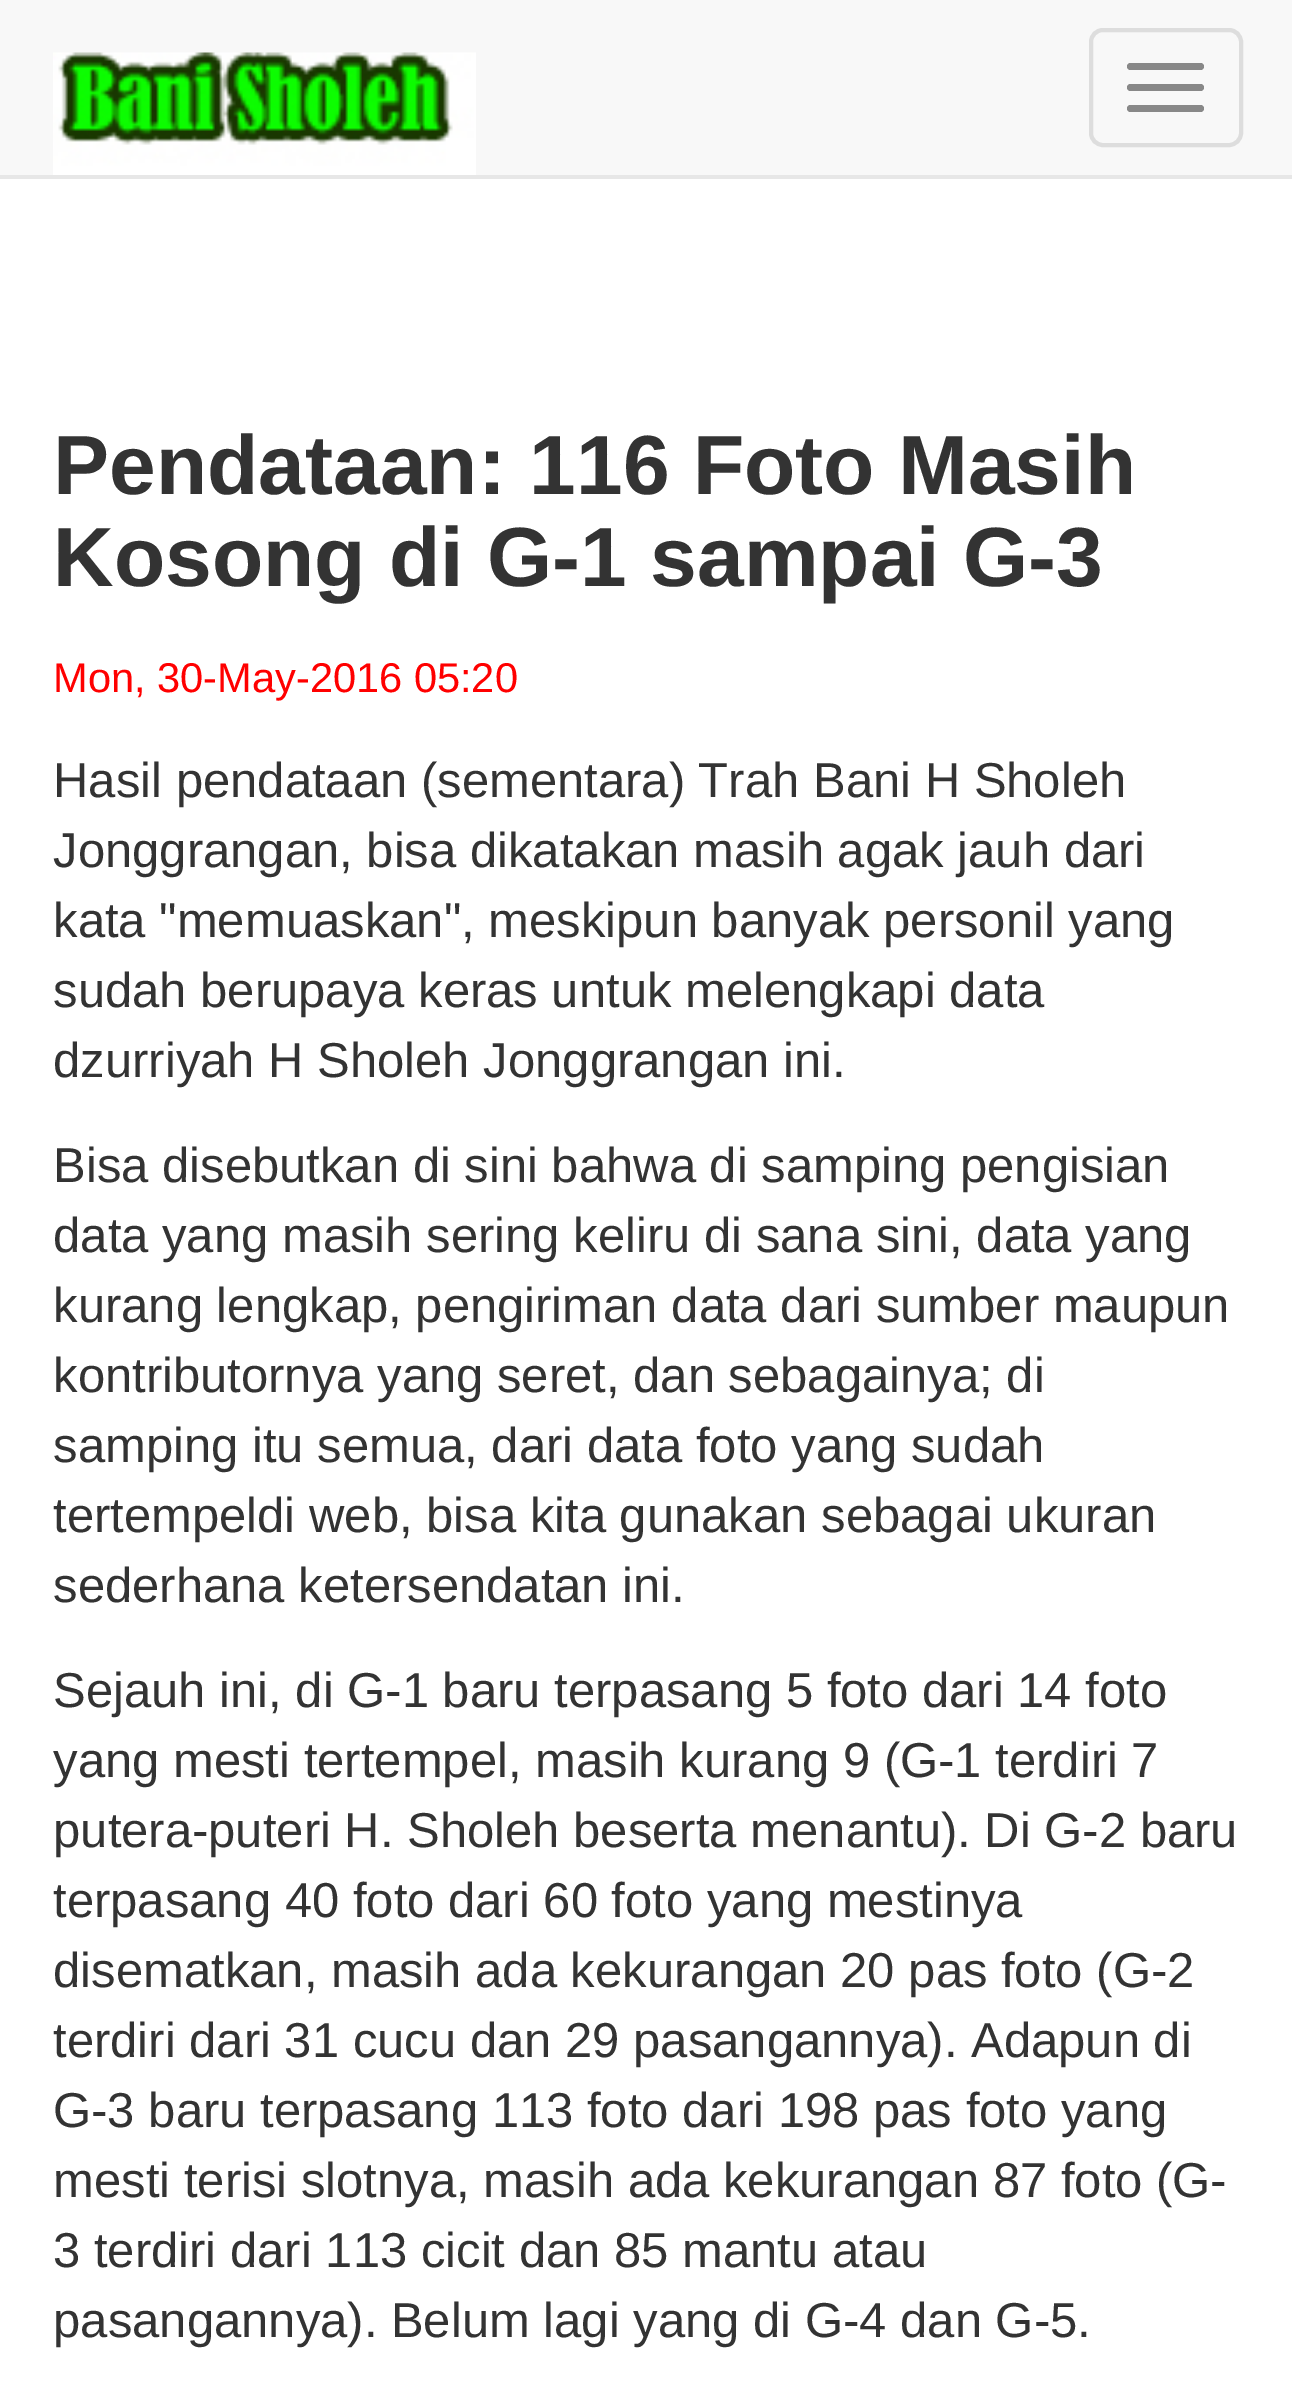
%!PS-Adobe-3.0
%%BoundingBox: 0 0 1292 2398
%%LanguageLevel: 3
%%Pages: 1
%%EndComments
%%BeginProlog
/setink { dup -16 bitshift 255 div exch dup -8 bitshift 255 and 255 div exch 255 and 255 div setrgbcolor } def
/usefont { [ exch dup neg 0 0 3 -1 roll 0 0 ] selectfont } def
/rrect { 5 dict begin { /r /h /w /y /x } { exch def } forall
  x r add y moveto x w add y 2 copy h add r arct x w add y h add x 1 index r arct
  x y h add x y r arct x y 2 copy exch w add exch r arct closepath end } def
/drawimage { 5 dict begin { /h /w /y /x /name } { exch def } forall
  gsave x y translate w h scale
  w h 8 [w 0 0 h 0 0] name (r) file false 3 colorimage grestore end } def
%%EndProlog
%%BeginSetup
<< /PageSize [1292 2398] >> setpagedevice
%%EndSetup
%%Page: 1 1
0 2398 translate 1 -1 scale
4 setmiterlimit
16#FFFFFF setink
0 0 1292 2398 rectfill
16#F8F8F8 setink
0 0 1292 175 rectfill
16#E7E7E7 setink
0 175 1292 4 rectfill
(img1.raw) 53 52 423 123 drawimage
16#DDDDDD setink
4 setlinewidth
1091 30 150 115 12 rrect stroke
16#888888 setink
1127 63 77 7 3.5 rrect fill
1127 84 77 7 3.5 rrect fill
1127 105 77 7 3.5 rrect fill
/LiberationSans-Bold 84 usefont
16#333333 setink
53 494 moveto (Pendataan: 116 Foto Masih) show
53 586 moveto (Kosong di G-1 sampai G-3) show
/LiberationSans-Regular 41.6 usefont
16#FF0000 setink
53 692 moveto (Mon, 30-May-2016 05:20) show
/LiberationSans-Regular 49 usefont
16#333333 setink
[
    [(Hasil pendataan \(sementara\) Trah Bani H Sholeh) 53 797]
    [(Jonggrangan, bisa dikatakan masih agak jauh dari) 53 867]
    [(kata "memuaskan", meskipun banyak personil yang) 53 937]
    [(sudah berupaya keras untuk melengkapi data) 53 1007]
    [(dzurriyah H Sholeh Jonggrangan ini.) 53 1077]
    [(Bisa disebutkan di sini bahwa di samping pengisian) 53 1182]
    [(data yang masih sering keliru di sana sini, data yang) 53 1252]
    [(kurang lengkap, pengiriman data dari sumber maupun) 53 1322]
    [(kontributornya yang seret, dan sebagainya; di) 53 1392]
    [(samping itu semua, dari data foto yang sudah) 53 1462]
    [(tertempeldi web, bisa kita gunakan sebagai ukuran) 53 1532]
    [(sederhana ketersendatan ini.) 53 1602]
    [(Sejauh ini, di G-1 baru terpasang 5 foto dari 14 foto) 53 1707]
    [(yang mesti tertempel, masih kurang 9 \(G-1 terdiri 7) 53 1777]
    [(putera-puteri H. Sholeh beserta menantu\). Di G-2 baru) 53 1847]
    [(terpasang 40 foto dari 60 foto yang mestinya) 53 1917]
    [(disematkan, masih ada kekurangan 20 pas foto \(G-2) 53 1987]
    [(terdiri dari 31 cucu dan 29 pasangannya\). Adapun di) 53 2057]
    [(G-3 baru terpasang 113 foto dari 198 pas foto yang) 53 2127]
    [(mesti terisi slotnya, masih ada kekurangan 87 foto \(G-) 53 2197]
    [(3 terdiri dari 113 cicit dan 85 mantu atau) 53 2267]
    [(pasangannya\). Belum lagi yang di G-4 dan G-5.) 53 2337]
] { aload pop moveto show } forall
showpage
%%EOF
